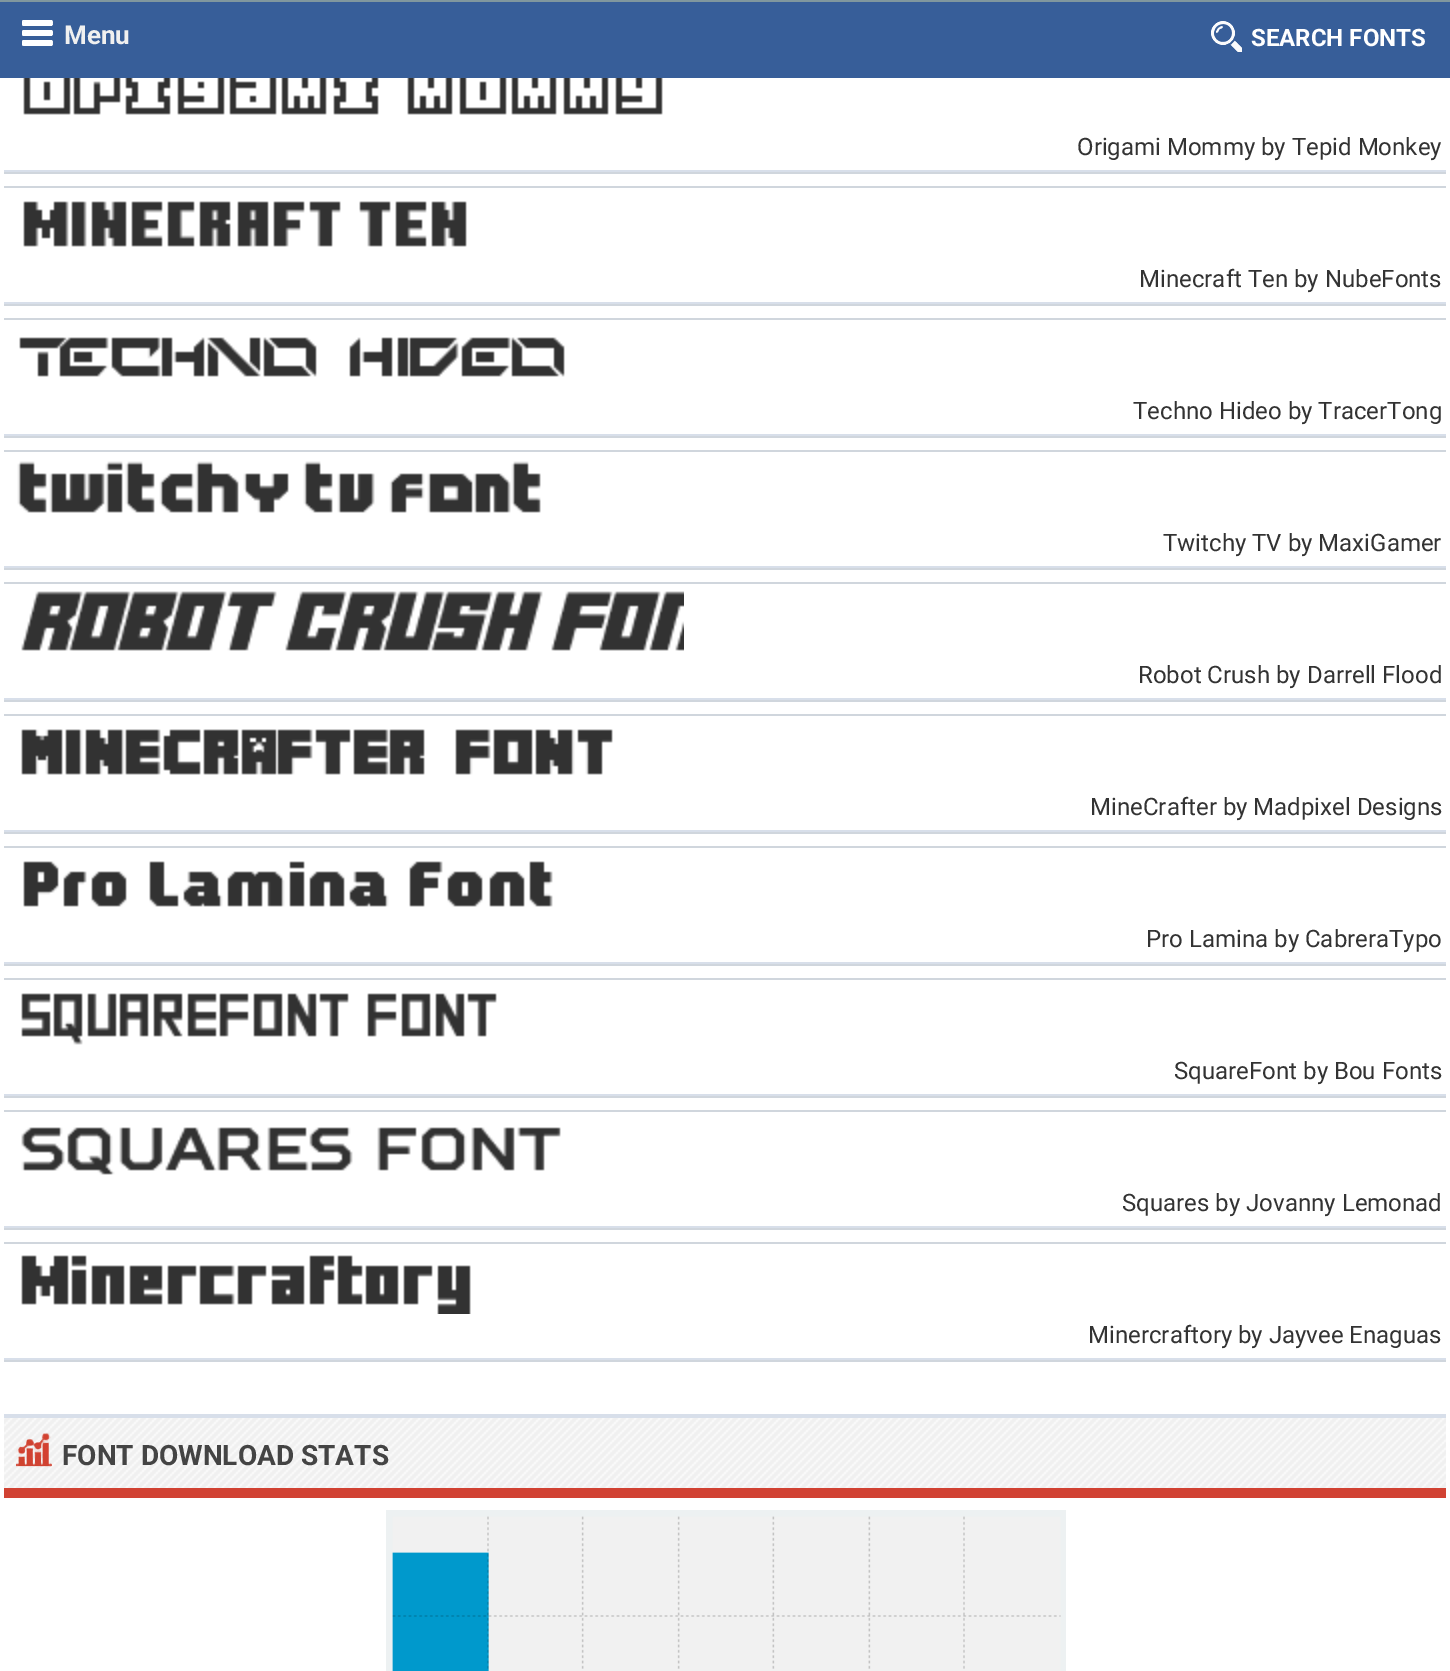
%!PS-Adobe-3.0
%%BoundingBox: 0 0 1450 1671
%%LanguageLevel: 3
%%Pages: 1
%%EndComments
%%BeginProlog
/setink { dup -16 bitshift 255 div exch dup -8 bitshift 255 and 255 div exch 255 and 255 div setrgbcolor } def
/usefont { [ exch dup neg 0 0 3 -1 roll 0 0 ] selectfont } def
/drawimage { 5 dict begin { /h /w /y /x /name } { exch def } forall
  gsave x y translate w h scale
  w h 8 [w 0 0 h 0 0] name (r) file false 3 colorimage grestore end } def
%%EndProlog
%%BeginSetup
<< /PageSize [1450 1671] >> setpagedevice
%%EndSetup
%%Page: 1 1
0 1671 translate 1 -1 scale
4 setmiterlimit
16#FFFFFF setink
0 0 1450 1671 rectfill
16#375E99 setink
0 2 1450 76 rectfill
16#80979E setink
0 0 1450 2 rectfill
(img1.raw) 22 20 31 26 drawimage
/Roboto-Bold 26 usefont
16#F0F0F0 setink
64 44 moveto (Menu) show
(img2.raw) 1211 21 31 31 drawimage
/Roboto-Bold 24 usefont
16#FFFFFF setink
1251 46 moveto (SEARCH FONTS) show
16#D0D6DD setink
4 172 1442 2 rectfill
(img3.raw) 23 78 640 37 drawimage
16#D8DFEA setink
4 170 1442 2 rectfill
/Roboto-Regular 24 usefont
16#333333 setink
1077 155 moveto (Origami Mommy by Tepid Monkey) show
16#D0D6DD setink
4 186 1442 2 rectfill
4 304 1442 2 rectfill
(img4.raw) 23 201 444 46 drawimage
16#D8DFEA setink
4 302 1442 2 rectfill
16#333333 setink
1139 287 moveto (Minecraft Ten by NubeFonts) show
16#D0D6DD setink
4 318 1442 2 rectfill
4 436 1442 2 rectfill
(img5.raw) 19 337 546 40 drawimage
16#D8DFEA setink
4 434 1442 2 rectfill
16#333333 setink
1133 419 moveto (Techno Hideo by TracerTong) show
16#D0D6DD setink
4 450 1442 2 rectfill
4 568 1442 2 rectfill
(img6.raw) 17 461 524 52 drawimage
16#D8DFEA setink
4 566 1442 2 rectfill
16#333333 setink
1163 551 moveto (Twitchy TV by MaxiGamer) show
16#D0D6DD setink
4 582 1442 2 rectfill
4 700 1442 2 rectfill
(img7.raw) 21 591 663 60 drawimage
16#D8DFEA setink
4 698 1442 2 rectfill
16#333333 setink
1138 683 moveto (Robot Crush by Darrell Flood) show
16#D0D6DD setink
4 714 1442 2 rectfill
4 832 1442 2 rectfill
(img8.raw) 21 729 592 46 drawimage
16#D8DFEA setink
4 830 1442 2 rectfill
16#333333 setink
1090 815 moveto (MineCrafter by Madpixel Designs) show
16#D0D6DD setink
4 846 1442 2 rectfill
4 964 1442 2 rectfill
(img9.raw) 23 861 530 46 drawimage
16#D8DFEA setink
4 962 1442 2 rectfill
16#333333 setink
1146 947 moveto (Pro Lamina by CabreraTypo) show
16#D0D6DD setink
4 978 1442 2 rectfill
4 1096 1442 2 rectfill
(img10.raw) 21 993 476 52 drawimage
16#D8DFEA setink
4 1094 1442 2 rectfill
16#333333 setink
1174 1079 moveto (SquareFont by Bou Fonts) show
16#D0D6DD setink
4 1110 1442 2 rectfill
4 1228 1442 2 rectfill
(img11.raw) 21 1127 540 48 drawimage
16#D8DFEA setink
4 1226 1442 2 rectfill
16#333333 setink
1122 1211 moveto (Squares by Jovanny Lemonad) show
16#D0D6DD setink
4 1242 1442 2 rectfill
4 1360 1442 2 rectfill
(img12.raw) 21 1255 450 59 drawimage
16#D8DFEA setink
4 1358 1442 2 rectfill
16#333333 setink
1088 1343 moveto (Minercraftory by Jayvee Enaguas) show
(img13.raw) 4 1418 1442 70 drawimage
16#D8DFEA setink
4 1414 1442 4 rectfill
16#D14233 setink
4 1488 1442 10 rectfill
(img14.raw) 16 1432 36 36 drawimage
/Roboto-Bold 28 usefont
16#444444 setink
62 1465 moveto (FONT DOWNLOAD STATS) show
(img15.raw) 386 1510 680 161 drawimage
showpage
%%EOF
